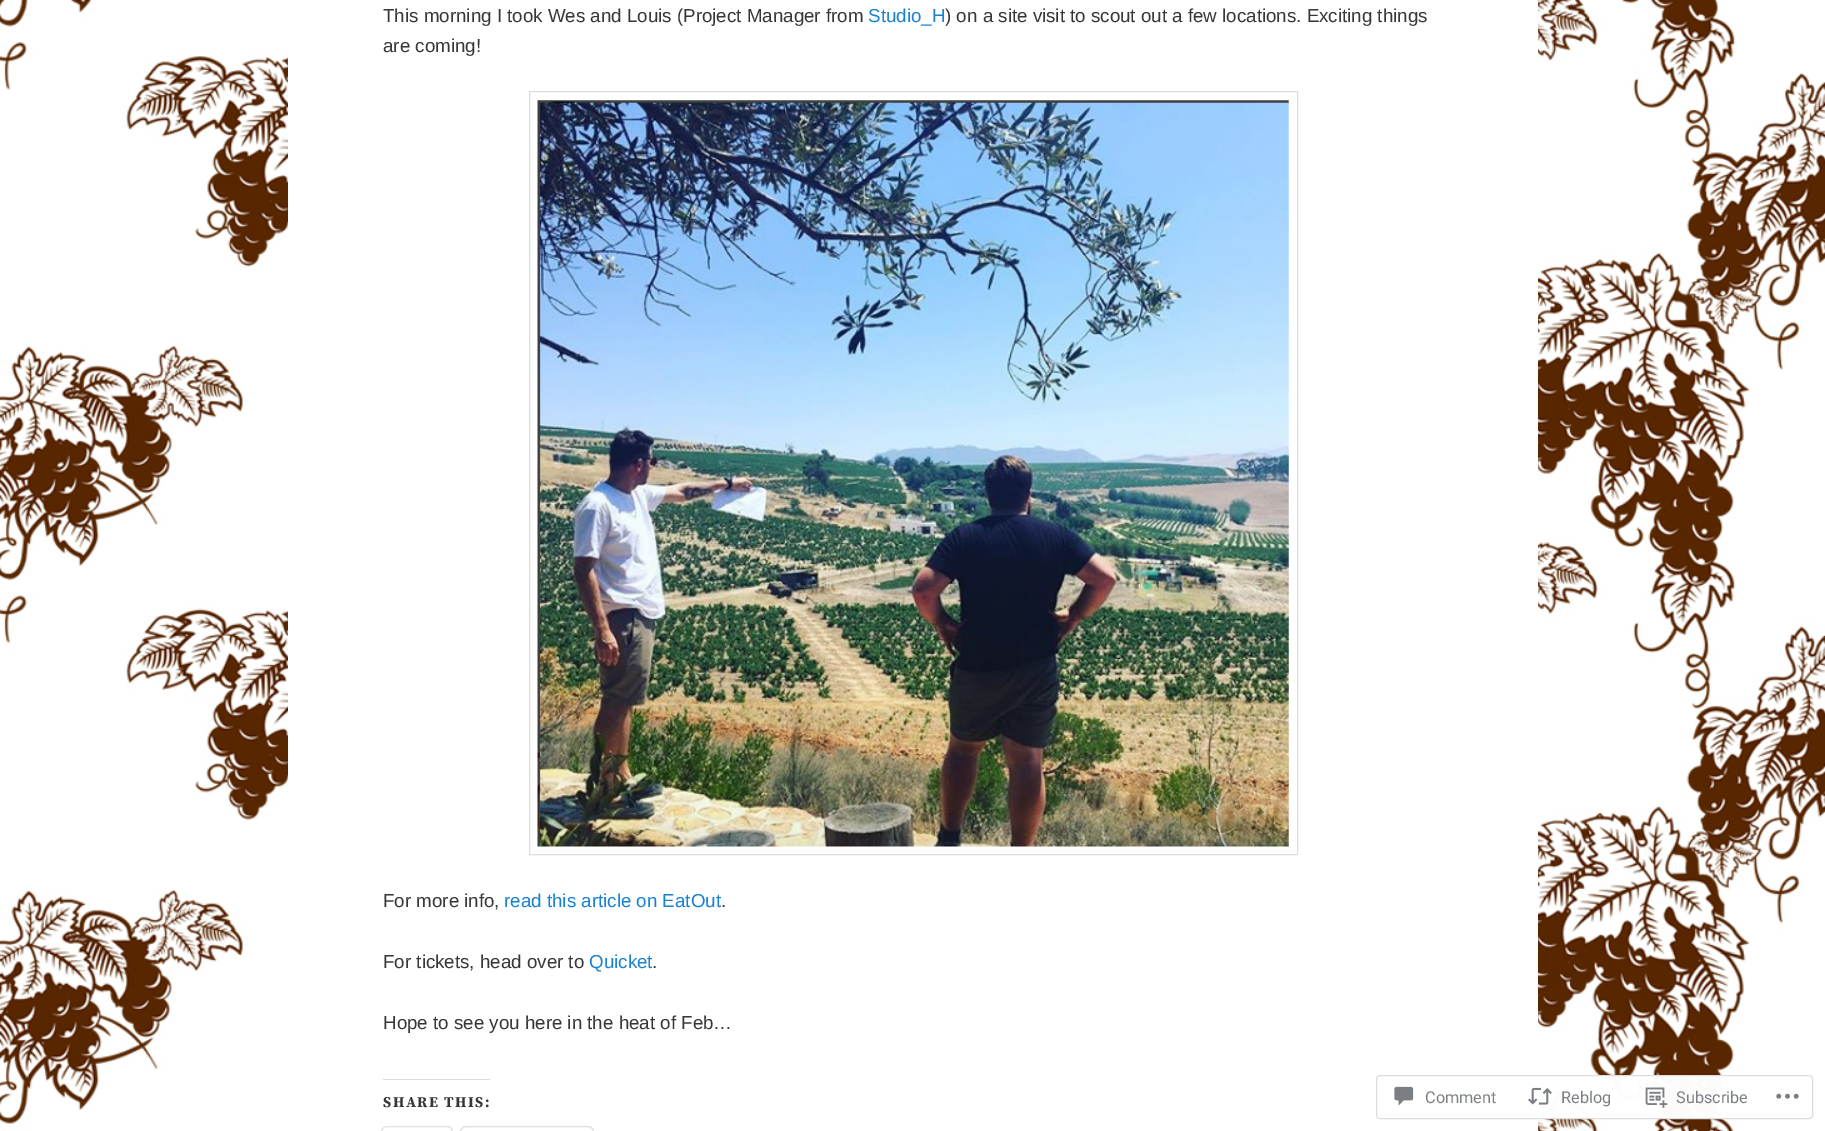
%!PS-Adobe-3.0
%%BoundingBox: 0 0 1825 1131
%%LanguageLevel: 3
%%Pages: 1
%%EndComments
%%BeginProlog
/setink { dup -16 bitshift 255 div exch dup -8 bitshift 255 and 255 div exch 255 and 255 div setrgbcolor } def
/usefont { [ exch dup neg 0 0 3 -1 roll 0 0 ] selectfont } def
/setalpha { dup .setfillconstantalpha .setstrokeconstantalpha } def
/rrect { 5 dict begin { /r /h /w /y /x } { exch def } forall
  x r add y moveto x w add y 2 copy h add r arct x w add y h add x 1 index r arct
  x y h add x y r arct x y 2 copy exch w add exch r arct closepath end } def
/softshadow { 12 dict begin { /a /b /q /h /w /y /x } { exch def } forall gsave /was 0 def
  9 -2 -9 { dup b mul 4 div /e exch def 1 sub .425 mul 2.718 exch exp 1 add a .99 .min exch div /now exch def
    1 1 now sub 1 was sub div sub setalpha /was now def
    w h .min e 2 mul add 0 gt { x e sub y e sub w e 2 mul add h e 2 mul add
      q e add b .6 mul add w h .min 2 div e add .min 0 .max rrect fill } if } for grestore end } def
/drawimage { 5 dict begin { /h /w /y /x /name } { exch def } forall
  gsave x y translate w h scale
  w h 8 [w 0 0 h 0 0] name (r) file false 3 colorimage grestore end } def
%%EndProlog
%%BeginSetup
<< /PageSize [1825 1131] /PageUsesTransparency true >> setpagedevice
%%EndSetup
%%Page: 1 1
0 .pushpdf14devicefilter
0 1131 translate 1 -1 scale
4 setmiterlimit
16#FFFFFF setink
0 0 1825 1131 rectfill
(img1.raw) 0 0 1825 1131 drawimage
288 0 1250 1131 rectfill
/LiberationSans-Regular 18.75 usefont
16#373737 setink
383 22 moveto (This morning I took Wes and Louis \(Project Manager from) show
16#1982D1 setink
868 22 moveto (Studio_H) show
16#373737 setink
945 22 moveto (\) on a site visit to scout out a few locations. Exciting things) show
383 52 moveto (are coming!) show
16#DDDDDD setink
529.5 91.5 768 763 rectstroke
(img2.raw) 537 100 752 747 drawimage
16#373737 setink
383 907 moveto (For more info,) show
16#1982D1 setink
504 907 moveto (read this article on EatOut) show
16#373737 setink
721 907 moveto (.) show
383 968 moveto (For tickets, head over to) show
16#1982D1 setink
589 968 moveto (Quicket) show
16#373737 setink
652 968 moveto (.) show
383 1029 moveto (Hope to see you here in the heat of Feb…) show
16#DCDCDE setink
383 1079 107 1 rectfill
/SourceSerifPro-Bold 15 usefont
16#373737 setink
383 1107 moveto 1.5 0 (SHARE THIS:) ashow
16#E0E0E0 setink
381.5 1126.5 71 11 5.5 rrect stroke
460.5 1126.5 133 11 5.5 rrect stroke
16#000000 setink
461 1129 132 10 5 1 0.12 softshadow
16#FFFFFF setink
461 1128 132 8 5 rrect fill
0.98 setalpha
1376 1075 437 44 4 rrect fill
16#DCDCDE setink
1376.5 1075.5 436 43 3.5 rrect stroke
1 setalpha
(img3.raw) 1394 1086 20 20 drawimage
/Roboto-Regular 16.25 usefont
16#7B7F85 setink
1425 1103 moveto (Comment) show
(img4.raw) 1528 1087 24 18 drawimage
1561 1103 moveto (Reblog) show
(img5.raw) 1645 1087 23 21 drawimage
1676 1103 moveto (Subscribe) show
(img6.raw) 1776 1093 23 6 drawimage
.poppdf14devicefilter showpage
%%EOF
